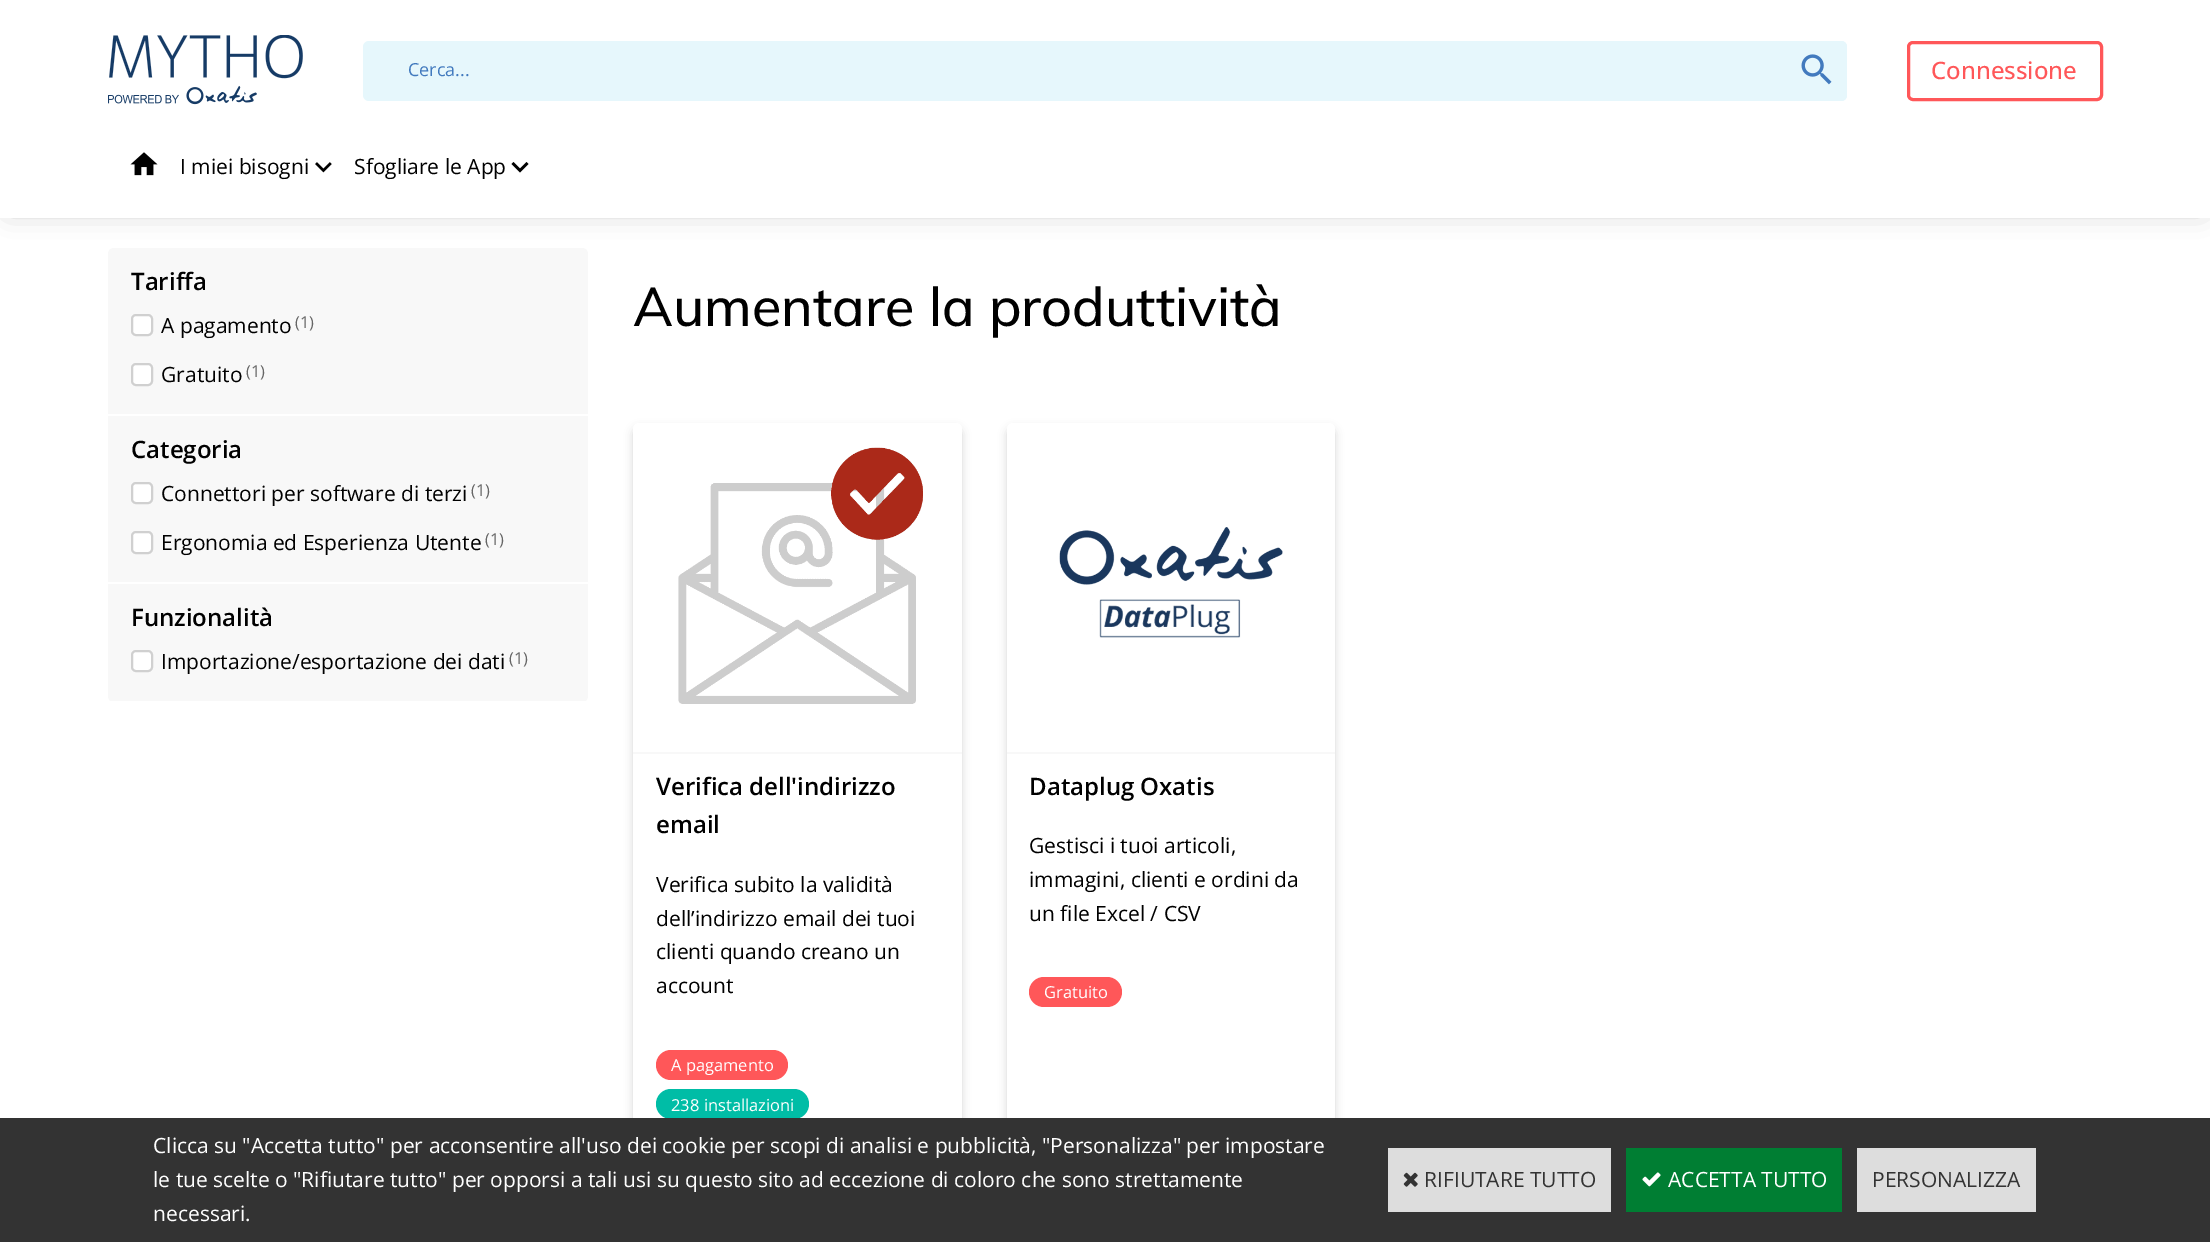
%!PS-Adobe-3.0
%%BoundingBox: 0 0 2210 1242
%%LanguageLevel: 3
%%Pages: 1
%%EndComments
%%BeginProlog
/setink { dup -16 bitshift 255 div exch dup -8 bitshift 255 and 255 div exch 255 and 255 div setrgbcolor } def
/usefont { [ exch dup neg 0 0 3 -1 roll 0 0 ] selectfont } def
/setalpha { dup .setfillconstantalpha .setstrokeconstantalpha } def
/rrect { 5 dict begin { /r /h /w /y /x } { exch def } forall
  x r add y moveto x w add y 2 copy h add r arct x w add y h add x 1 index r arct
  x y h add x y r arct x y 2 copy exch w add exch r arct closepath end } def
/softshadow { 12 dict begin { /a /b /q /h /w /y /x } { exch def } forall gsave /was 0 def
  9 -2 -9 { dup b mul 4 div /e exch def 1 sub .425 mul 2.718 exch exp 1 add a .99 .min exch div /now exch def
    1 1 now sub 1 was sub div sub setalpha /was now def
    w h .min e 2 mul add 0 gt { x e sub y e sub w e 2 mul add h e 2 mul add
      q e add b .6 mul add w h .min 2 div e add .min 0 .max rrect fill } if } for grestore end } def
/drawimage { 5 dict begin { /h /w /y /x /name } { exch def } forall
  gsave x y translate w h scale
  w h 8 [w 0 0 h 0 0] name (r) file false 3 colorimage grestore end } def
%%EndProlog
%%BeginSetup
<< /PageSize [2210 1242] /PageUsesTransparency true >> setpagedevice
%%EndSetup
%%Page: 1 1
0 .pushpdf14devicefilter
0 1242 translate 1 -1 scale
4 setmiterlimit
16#FFFFFF setink
0 0 2210 1242 rectfill
16#F8F8F8 setink
114 248 moveto 582 248 lineto 585.5 248 588 250.5 588 254 curveto 588 416 lineto 108 416 lineto 108 254 lineto 108 250.5 110.5 248 114 248 curveto closepath fill
gsave
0 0 moveto 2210 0 lineto 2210 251 lineto 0 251 lineto closepath 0 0 moveto 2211 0 lineto 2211 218 lineto 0 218 lineto closepath eoclip newpath
16#000000 setink
9 9 2193 200 0 13.5 0.3 softshadow
grestore
(img1.raw) 108 35 195 70 drawimage
16#E6F7FC setink
363 41 1484 60 6 rrect fill
/OpenSans-Regular 18 usefont
16#427ABE setink
408 76 moveto (Cerca...) show
16#E6F7FC setink
1787 41 moveto 1841 41 lineto 1844.5 41 1847 43.5 1847 47 curveto 1847 95 lineto 1847 98.5 1844.5 101 1841 101 curveto 1787 101 lineto closepath fill
(img2.raw) 1801 54 31 31 drawimage
16#FF5759 setink
3 setlinewidth
1908.5 42.5 193 57 4.5 rrect stroke
/OpenSans-Medium 24 usefont
1931 79 moveto (Connessione) show
(img3.raw) 130 152 28 24 drawimage
/OpenSans-Regular 21 usefont
16#000000 setink
180 174 moveto (I miei bisogni) show
(img4.raw) 315 162 17 11 drawimage
354 174 moveto (Sfogliare le App) show
526.5 162 moveto 520 168.5 lineto 513.5 162 lineto 511.5 164 lineto 520 172.5 lineto 528.5 164 lineto closepath fill
16#FFFFFF setink
108 414 480 2 rectfill
/OpenSans-SemiBold 24 usefont
16#000000 setink
131 290 moveto (Tariffa) show
16#FFFFFF setink
132 315 20 20 4 rrect gsave fill grestore
16#D0D0D0 setink
2 setlinewidth
stroke
/OpenSans-Regular 21 usefont
16#000000 setink
161 333 moveto (A pagamento) show
/OpenSans-Regular 16.5 usefont
16#666666 setink
295 328 moveto (\(1\)) show
16#FFFFFF setink
132 364 20 21 4 rrect gsave fill grestore
16#D0D0D0 setink
stroke
/OpenSans-Regular 21 usefont
16#000000 setink
161 382 moveto (Gratuito) show
/OpenSans-Regular 16.5 usefont
16#666666 setink
246 377 moveto (\(1\)) show
16#F8F8F8 setink
108 416 480 166 rectfill
/OpenSans-SemiBold 24 usefont
16#000000 setink
131 458 moveto (Categoria) show
16#FFFFFF setink
132 483 20 20 4 rrect gsave fill grestore
16#D0D0D0 setink
stroke
/OpenSans-Regular 21 usefont
16#000000 setink
161 501 moveto (Connettori per software di terzi) show
/OpenSans-Regular 16.5 usefont
16#666666 setink
471 496 moveto (\(1\)) show
16#FFFFFF setink
132 532 20 21 4 rrect gsave fill grestore
16#D0D0D0 setink
stroke
/OpenSans-Regular 21 usefont
16#000000 setink
161 550 moveto (Ergonomia ed Esperienza Utente) show
/OpenSans-Regular 16.5 usefont
16#666666 setink
485 545 moveto (\(1\)) show
16#F8F8F8 setink
108 584 moveto 588 584 lineto 588 696 lineto 588 699.5 585.5 702 582 702 curveto 114 702 lineto 110.5 702 108 699.5 108 696 curveto closepath fill
gsave
108 248 480 454 6 rrect clip newpath
16#FFFFFF setink
108 701 480 1 rectfill
grestore
/OpenSans-SemiBold 24 usefont
16#000000 setink
131 626 moveto (Funzionalità) show
16#FFFFFF setink
132 651 20 20 4 rrect gsave fill grestore
16#D0D0D0 setink
stroke
/OpenSans-Regular 21 usefont
16#000000 setink
161 669 moveto (Importazione/esportazione dei dati) show
/OpenSans-Regular 16.5 usefont
16#666666 setink
509 664 moveto (\(1\)) show
/Muli-Medium 54 usefont
16#000000 setink
633 326 moveto (Aumentare la produttività) show
633 428 329 720 6 4.5 0.16 softshadow
16#FFFFFF setink
633 423 329 720 6 rrect fill
16#F8F8F8 setink
633 752 329 2 rectfill
(img5.raw) 678 447 245 257 drawimage
/OpenSans-SemiBold 24 usefont
16#000000 setink
656 795 moveto (Verifica dell'indirizzo) show
656 833 moveto (email) show
/OpenSans-Regular 21 usefont
[
    [(Verifica subito la validità) 656 892]
    [(dell’indirizzo email dei tuoi) 656 926]
    [(clienti quando creano un) 656 959]
    [(account) 656 993]
] { aload pop moveto show } forall
16#FF5759 setink
656 1050 132 30 15 rrect fill
/OpenSans-Regular 16.5 usefont
16#FFFFFF setink
671 1071 moveto (A pagamento) show
16#00BDA6 setink
656 1089 153 30 15 rrect fill
16#FFFFFF setink
671 1111 moveto (238 installazioni) show
16#000000 setink
1007 428 328 720 6 4.5 0.16 softshadow
16#FFFFFF setink
1007 423 328 720 6 rrect fill
16#F8F8F8 setink
1007 752 328 2 rectfill
(img6.raw) 1059 527 224 111 drawimage
/OpenSans-SemiBold 24 usefont
16#000000 setink
1029 795 moveto (Dataplug Oxatis) show
/OpenSans-Regular 21 usefont
[
    [(Gestisci i tuoi articoli,) 1029 853]
    [(immagini, clienti e ordini da) 1029 887]
    [(un file Excel / CSV) 1029 921]
] { aload pop moveto show } forall
16#FF5759 setink
1029 977 93 30 15 rrect fill
/OpenSans-Regular 16.5 usefont
16#FFFFFF setink
1044 998 moveto (Gratuito) show
16#333333 setink
0 1118 2210 124 rectfill
/OpenSans-Regular 21 usefont
16#FFFFFF setink
[
    [(Clicca su "Accetta tutto" per acconsentire all'uso dei cookie per scopi di analisi e pubblicità, "Personalizza" per impostare) 153 1153]
    [(le tue scelte o "Rifiutare tutto" per opporsi a tali usi su questo sito ad eccezione di coloro che sono strettamente) 153 1187]
    [(necessari.) 153 1221]
] { aload pop moveto show } forall
16#DDDDDD setink
1388 1148 223 64 rectfill
(img7.raw) 1403 1172 15 15 drawimage
16#333333 setink
1424 1187 moveto (RIFIUTARE TUTTO) show
16#007E33 setink
1626 1148 216 64 rectfill
(img8.raw) 1642 1172 19 15 drawimage
16#FFFFFF setink
1668 1187 moveto (ACCETTA TUTTO) show
16#DDDDDD setink
1857 1148 179 64 rectfill
16#333333 setink
1872 1187 moveto (PERSONALIZZA) show
.poppdf14devicefilter showpage
%%EOF
